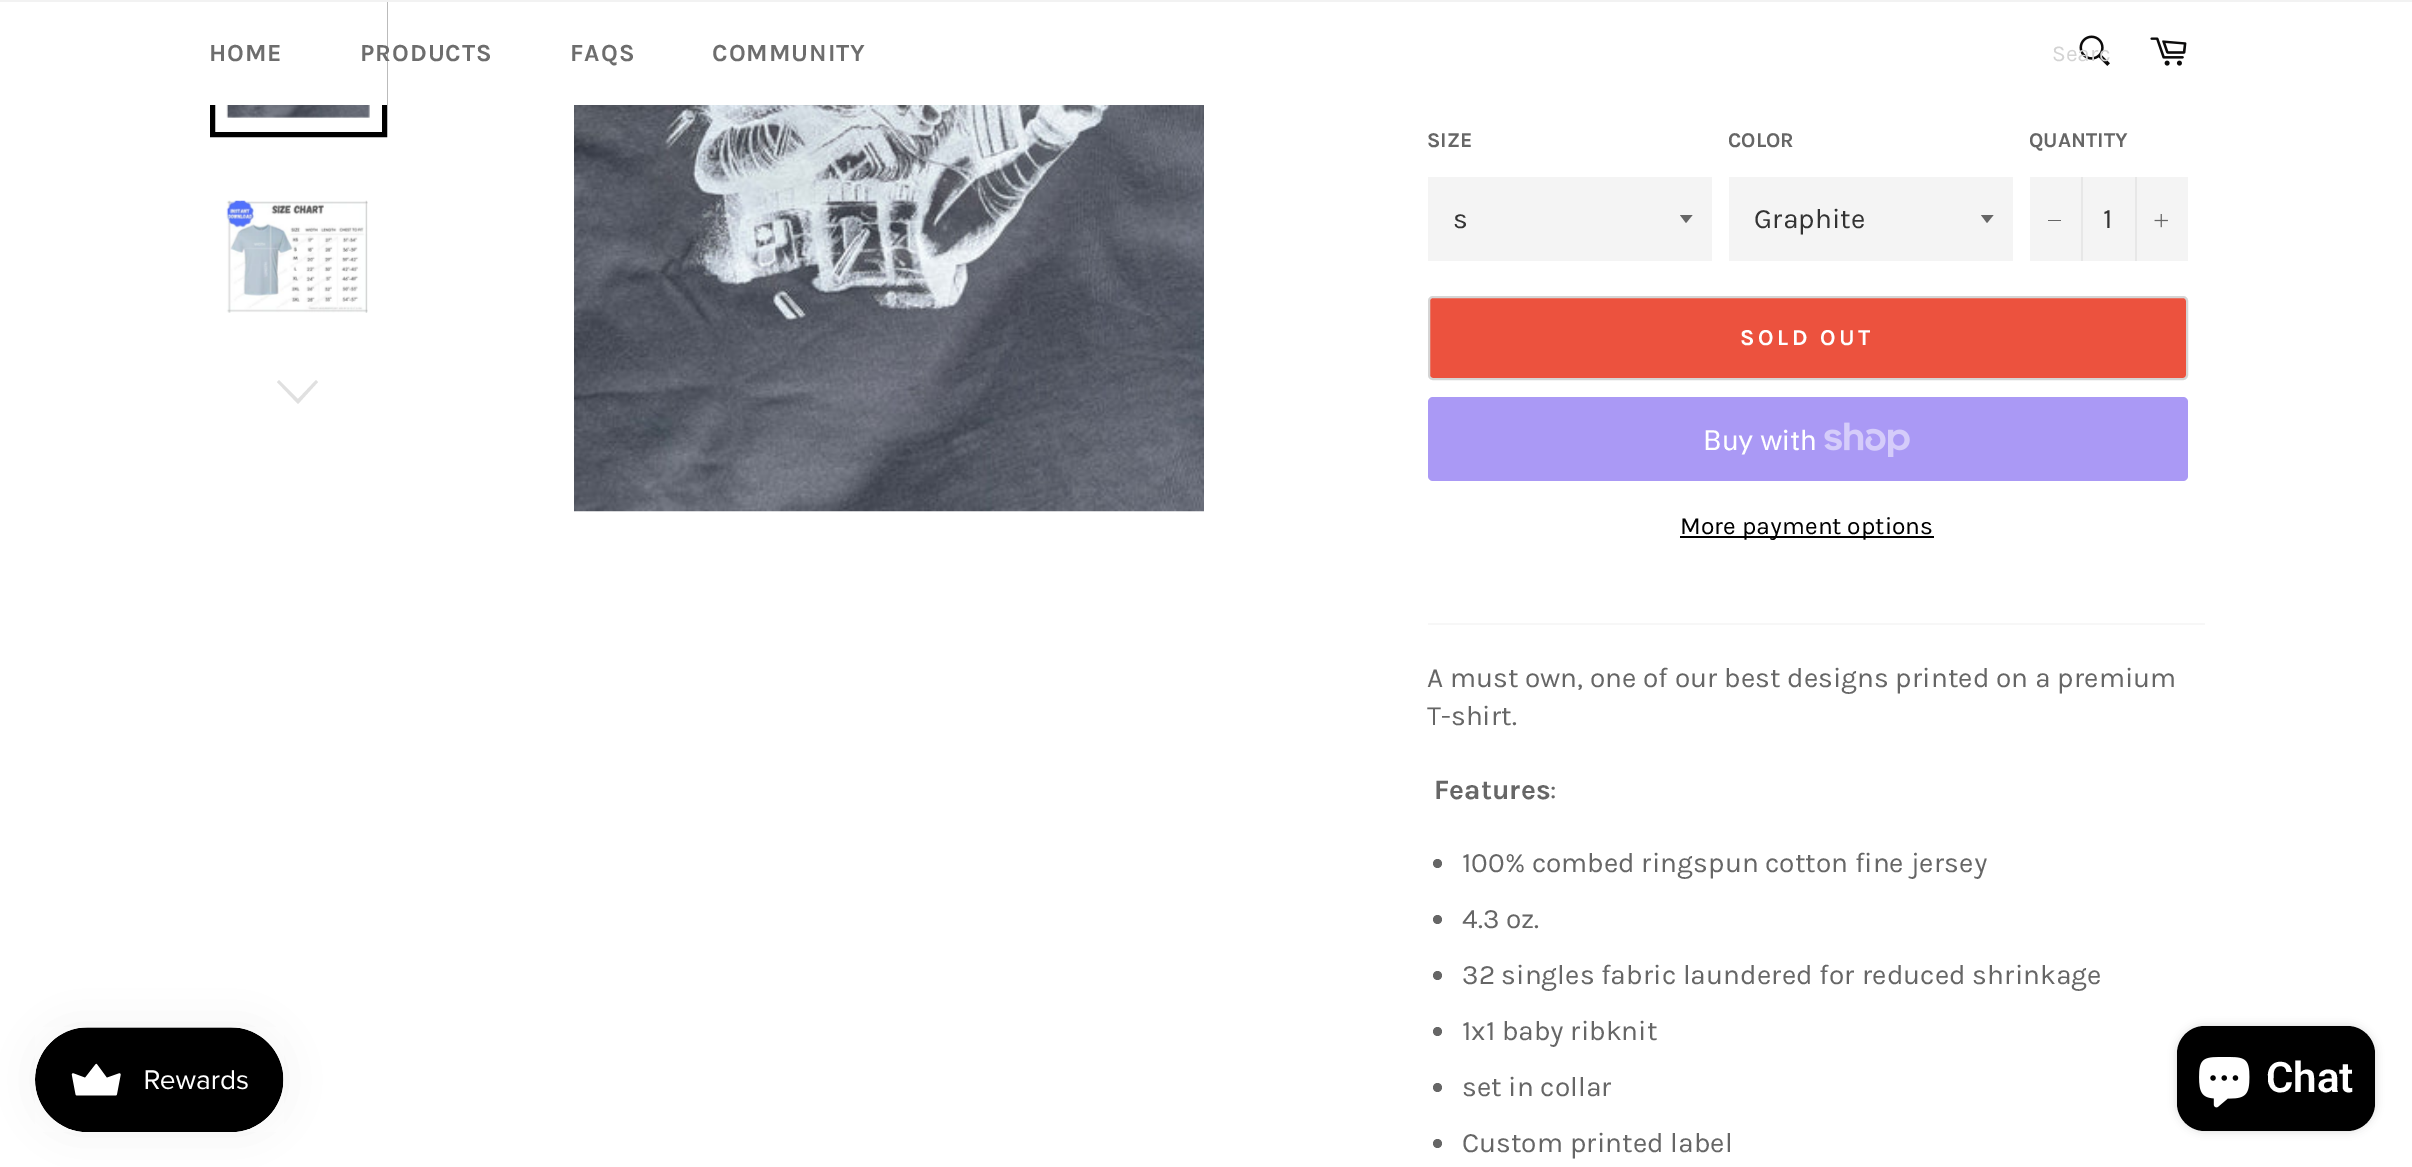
%!PS-Adobe-3.0
%%BoundingBox: 0 0 2412 1167
%%LanguageLevel: 3
%%Pages: 1
%%EndComments
%%BeginProlog
/setink { dup -16 bitshift 255 div exch dup -8 bitshift 255 and 255 div exch 255 and 255 div setrgbcolor } def
/usefont { [ exch dup neg 0 0 3 -1 roll 0 0 ] selectfont } def
/setalpha { dup .setfillconstantalpha .setstrokeconstantalpha } def
/disc { newpath 0 360 arc closepath } def
/rrect { 5 dict begin { /r /h /w /y /x } { exch def } forall
  x r add y moveto x w add y 2 copy h add r arct x w add y h add x 1 index r arct
  x y h add x y r arct x y 2 copy exch w add exch r arct closepath end } def
/softshadow { 12 dict begin { /a /b /q /h /w /y /x } { exch def } forall gsave /was 0 def
  9 -2 -9 { dup b mul 4 div /e exch def 1 sub .425 mul 2.718 exch exp 1 add a .99 .min exch div /now exch def
    1 1 now sub 1 was sub div sub setalpha /was now def
    w h .min e 2 mul add 0 gt { x e sub y e sub w e 2 mul add h e 2 mul add
      q e add b .6 mul add w h .min 2 div e add .min 0 .max rrect fill } if } for grestore end } def
/drawimage { 5 dict begin { /h /w /y /x /name } { exch def } forall
  gsave x y translate w h scale
  w h 8 [w 0 0 h 0 0] name (r) file false 3 colorimage grestore end } def
%%EndProlog
%%BeginSetup
<< /PageSize [2412 1167] /PageUsesTransparency true >> setpagedevice
%%EndSetup
%%Page: 1 1
0 .pushpdf14devicefilter
0 1167 translate 1 -1 scale
4 setmiterlimit
16#FFFFFF setink
0 0 2412 1167 rectfill
(img4.raw) 226 105 144 13 drawimage
16#000000 setink
5 setlinewidth
212.5 -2.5 172 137 rectstroke
16#FFFFFF setink
210 2 177 103 rectfill
16#F2F2F2 setink
0 0 2412 2 rectfill
/Karla-Bold 24.5 usefont
16#6D6D6D setink
209 61 moveto 1 0 (HOME) ashow
360 61 moveto 1 0 (PRODUCTS) ashow
570 61 moveto 1 0 (FAQS) ashow
712 61 moveto 1 0 (COMMUNITY) ashow
(img1.raw) 2079 35 31 31 drawimage
/Karla-Regular 22.75 usefont
16#D3D3D3 setink
2052 61 moveto (Searc) show
(img2.raw) 2150 37 37 29 drawimage
16#000000 setink
35 1027 249 105 52.5 22 0.05 softshadow
(img3.raw) 35 1027 249 105 drawimage
(img5.raw) 226 200 142 113 drawimage
16#E0E0E0 setink
316 380 moveto 318 382 lineto 298 404 lineto 277 382 lineto 279 380 lineto 298 399 lineto closepath fill
(img6.raw) 574 105 630 407 drawimage
/Karla-Bold 21 usefont
16#666666 setink
1427 147 moveto (SIZE) show
16#F4F4F4 setink
1428 177 284 84 rectfill
16#666666 setink
1680 215 moveto 1686 223 lineto 1692.5 215 lineto closepath fill
/Karla-Regular 28 usefont
16#333333 setink
1453 228 moveto (s) show
/Karla-Bold 21 usefont
16#666666 setink
1728 147 moveto (COLOR) show
16#F4F4F4 setink
1729 177 284 84 rectfill
16#666666 setink
1981 215 moveto 1987 223 lineto 1993.5 215 lineto closepath fill
/Karla-Regular 28 usefont
16#333333 setink
1754 228 moveto (Graphite) show
/Karla-Bold 21 usefont
16#666666 setink
2029 147 moveto (QUANTITY) show
[
    [2030 177 158 84 16#F4F4F4]
    [2081 177 2 84 16#E7E7E7]
    [2048 220 13 1 16#666666]
] { aload pop setink rectfill } forall
/Karla-Regular 28 usefont
16#333333 setink
2103 228 moveto (1) show
16#E7E7E7 setink
2135 177 2 84 rectfill
(img7.raw) 2154 214 14 14 drawimage
16#EC523E setink
1429 297 758 82 4 rrect gsave fill grestore
16#D5D5D5 setink
2 setlinewidth
stroke
/Karla-Bold 22.75 usefont
16#FFFFFF setink
1740 345 moveto 3.5 0 (SOLD OUT) ashow
16#AA99F5 setink
1428 397 760 84 5 rrect fill
/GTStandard-Regular 28 usefont
16#FFFFFF setink
1703 450 moveto (Buy with) show
(img8.raw) 1824 422 86 35 drawimage
16#000000 setink
1680 536 254 2 rectfill
/Karla-Regular 24.5 usefont
1680 534 moveto (More payment options) show
16#F7F7F7 setink
1428 623 777 2 rectfill
/Karla-Regular 28 usefont
16#666666 setink
1427 687 moveto (A must own, one of our best designs printed on a premium) show
1427 725 moveto (T-shirt.) show
/Karla-Bold 28 usefont
1434 799 moveto (Features) show
/Karla-Regular 28 usefont
1550 799 moveto (:) show
1437.5 863.5 4.5 disc fill
1462 872 moveto (100% combed ringspun cotton fine jersey) show
1437.5 919.5 4.5 disc fill
1462 928 moveto (4.3 oz.) show
1437.5 975.5 4.5 disc fill
1462 984 moveto (32 singles fabric laundered for reduced shrinkage) show
1437.5 1031.5 4.5 disc fill
1462 1040 moveto (1x1 baby ribknit) show
1437.5 1087.5 4.5 disc fill
1462 1096 moveto (set in collar) show
1437.5 1143.5 4.5 disc fill
1462 1152 moveto (Custom printed label) show
16#000000 setink
2177 1026 198 105 28 4.5 0.15 softshadow
2177 1026 198 105 28 rrect fill
(img9.raw) 2199 1057 51 51 drawimage
/Roboto-SemiBold 42 usefont
16#FFFFFF setink
2266 1092 moveto (Chat) show
.poppdf14devicefilter showpage
%%EOF
